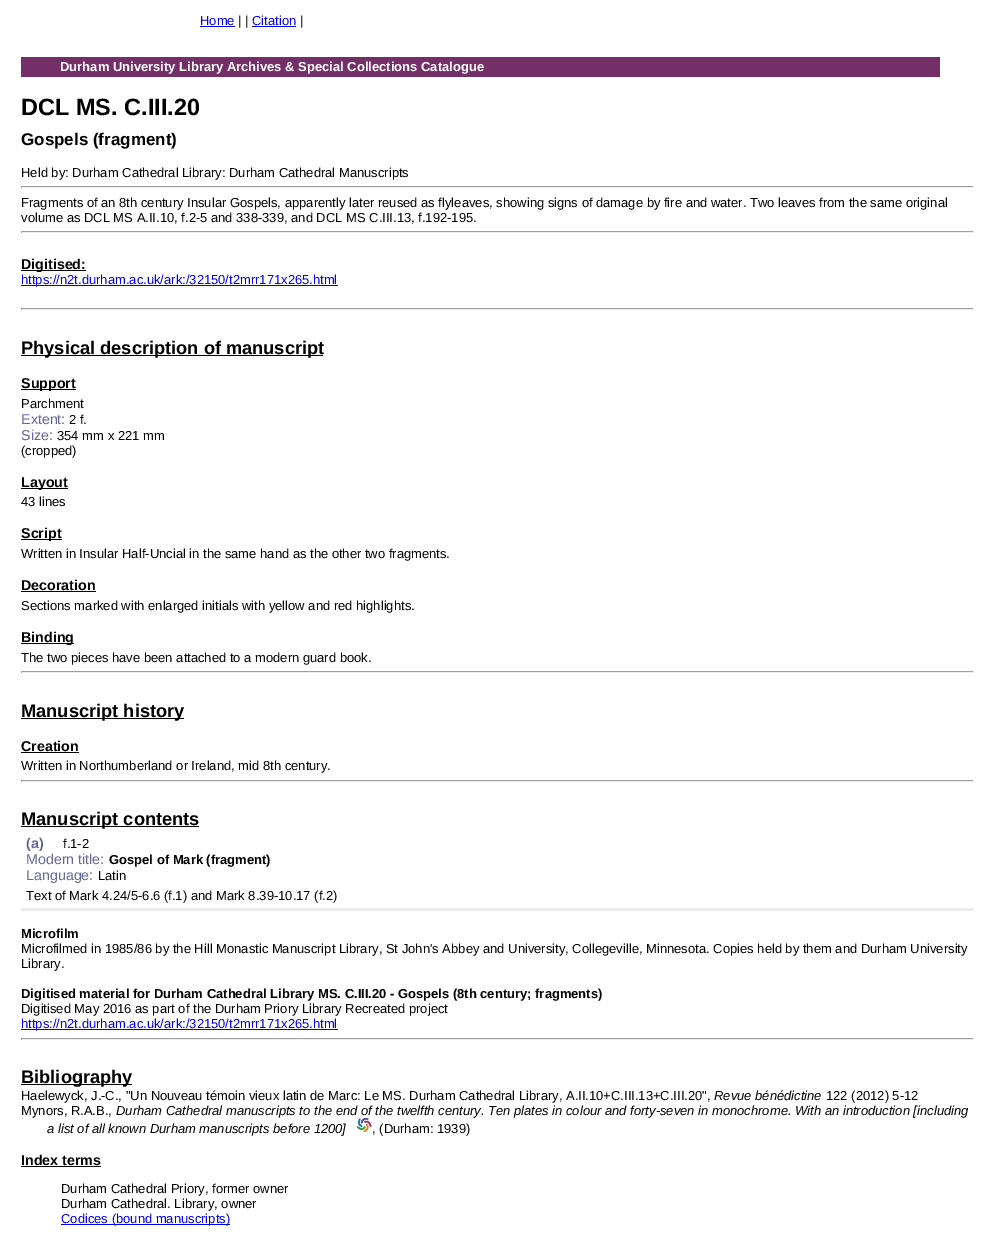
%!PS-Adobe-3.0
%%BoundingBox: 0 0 995 1237
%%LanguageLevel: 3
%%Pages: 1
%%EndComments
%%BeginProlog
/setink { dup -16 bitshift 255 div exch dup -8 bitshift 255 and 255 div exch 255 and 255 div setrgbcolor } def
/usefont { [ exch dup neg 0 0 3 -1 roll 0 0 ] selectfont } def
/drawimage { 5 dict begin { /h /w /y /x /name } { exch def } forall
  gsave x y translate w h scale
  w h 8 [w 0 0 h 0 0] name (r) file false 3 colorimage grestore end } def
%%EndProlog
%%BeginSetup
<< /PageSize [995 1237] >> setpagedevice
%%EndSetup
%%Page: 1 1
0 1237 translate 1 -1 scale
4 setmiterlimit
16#FFFFFF setink
0 0 995 1237 rectfill
/LiberationSans-Regular 13 usefont
16#0000EE setink
200 25 moveto (Home) show
200 26 35 1 rectfill
16#000000 setink
238 25 moveto (| |) show
16#0000EE setink
252 25 moveto (Citation) show
252 26 44 1 rectfill
16#000000 setink
300 25 moveto (|) show
16#742E68 setink
21 57 919 20 rectfill
/LiberationSans-Bold 13 usefont
16#FFFFFF setink
60 71 moveto (Durham University Library Archives & Special Collections Catalogue) show
/LiberationSans-Bold 23.5 usefont
16#000000 setink
21 115 moveto (DCL MS. C.III.20) show
/LiberationSans-Bold 17 usefont
21 145 moveto (Gospels \(fragment\)) show
/LiberationSans-Regular 13 usefont
21 177 moveto (Held by: Durham Cathedral Library: Durham Cathedral Manuscripts) show
[
    [21 186 953 1 16#9F9F9F]
    [973 186 1 2 16#EEEEEE]
    [21 187 953 1 16#EEEEEE]
    [21 186 1 2 16#9F9F9F]
] { aload pop setink rectfill } forall
16#000000 setink
21 207 moveto (Fragments of an 8th century Insular Gospels, apparently later reused as flyleaves, showing signs of damage by fire and water. Two leaves from the same original) show
21 222 moveto (volume as DCL MS A.II.10, f.2-5 and 338-339, and DCL MS C.III.13, f.192-195.) show
[
    [21 231 953 1 16#9F9F9F]
    [973 231 1 2 16#EEEEEE]
    [21 232 953 1 16#EEEEEE]
    [21 231 1 2 16#9F9F9F]
    [21 270 65 1 16#000000]
] { aload pop setink rectfill } forall
/LiberationSans-Bold 14.25 usefont
21 269 moveto (Digitised:) show
16#0000EE setink
21 285 317 1 rectfill
/LiberationSans-Regular 13 usefont
21 284 moveto (https://n2t.durham.ac.uk/ark:/32150/t2mrr171x265.html) show
[
    [21 308 953 1 16#9F9F9F]
    [973 308 1 2 16#EEEEEE]
    [21 309 953 1 16#EEEEEE]
    [21 308 1 2 16#9F9F9F]
    [21 355 302 1 16#000000]
] { aload pop setink rectfill } forall
/LiberationSans-Bold 18.25 usefont
21 354 moveto (Physical description of manuscript) show
21 389 55 1 rectfill
/LiberationSans-Bold 14.25 usefont
21 388 moveto (Support) show
/LiberationSans-Regular 13 usefont
21 408 moveto (Parchment) show
/LiberationSans-Regular 14.25 usefont
16#666699 setink
21 424 moveto (Extent:) show
/LiberationSans-Regular 13 usefont
16#000000 setink
69 424 moveto (2 f.) show
/LiberationSans-Regular 14.25 usefont
16#666699 setink
21 440 moveto (Size:) show
/LiberationSans-Regular 13 usefont
16#000000 setink
57 440 moveto (354 mm x 221 mm) show
21 455 moveto (\(cropped\)) show
21 488 47 1 rectfill
/LiberationSans-Bold 14.25 usefont
21 487 moveto (Layout) show
/LiberationSans-Regular 13 usefont
21 506 moveto (43 lines) show
21 539 41 1 rectfill
/LiberationSans-Bold 14.25 usefont
21 538 moveto (Script) show
/LiberationSans-Regular 13 usefont
21 558 moveto (Written in Insular Half-Uncial in the same hand as the other two fragments.) show
/LiberationSans-Bold 14.25 usefont
21 590 moveto (Decoration) show
21 591 75 1 rectfill
/LiberationSans-Regular 13 usefont
21 610 moveto (Sections marked with enlarged initials with yellow and red highlights.) show
21 643 53 1 rectfill
/LiberationSans-Bold 14.25 usefont
21 642 moveto (Binding) show
/LiberationSans-Regular 13 usefont
21 662 moveto (The two pieces have been attached to a modern guard book.) show
[
    [21 671 953 1 16#9F9F9F]
    [973 671 1 2 16#EEEEEE]
    [21 672 953 1 16#EEEEEE]
    [21 671 1 2 16#9F9F9F]
    [21 718 163 1 16#000000]
] { aload pop setink rectfill } forall
/LiberationSans-Bold 18.25 usefont
21 717 moveto (Manuscript history) show
/LiberationSans-Bold 14.25 usefont
21 751 moveto (Creation) show
21 752 58 1 rectfill
/LiberationSans-Regular 13 usefont
21 770 moveto (Written in Northumberland or Ireland, mid 8th century.) show
[
    [21 780 953 1 16#9F9F9F]
    [973 780 1 2 16#EEEEEE]
    [21 781 953 1 16#EEEEEE]
    [21 780 1 2 16#9F9F9F]
    [21 826 178 1 16#000000]
] { aload pop setink rectfill } forall
/LiberationSans-Bold 18.25 usefont
21 825 moveto (Manuscript contents) show
16#ECECF2 setink
21 908 953 3 rectfill
/LiberationSans-Bold 14.25 usefont
16#666699 setink
26 848 moveto (\(a\)) show
/LiberationSans-Regular 13 usefont
16#000000 setink
63 848 moveto (f.1-2) show
/LiberationSans-Regular 14.25 usefont
16#666699 setink
26 864 moveto (Modern title:) show
/LiberationSans-Bold 13 usefont
16#000000 setink
109 864 moveto (Gospel of Mark \(fragment\)) show
/LiberationSans-Regular 14.25 usefont
16#666699 setink
26 880 moveto (Language:) show
/LiberationSans-Regular 13 usefont
16#000000 setink
98 880 moveto (Latin) show
26 900 moveto (Text of Mark 4.24/5-6.6 \(f.1\) and Mark 8.39-10.17 \(f.2\)) show
/LiberationSans-Bold 13 usefont
21 938 moveto (Microfilm) show
/LiberationSans-Regular 13 usefont
21 953 moveto (Microfilmed in 1985/86 by the Hill Monastic Manuscript Library, St John's Abbey and University, Collegeville, Minnesota. Copies held by them and Durham University) show
21 968 moveto (Library.) show
/LiberationSans-Bold 13 usefont
21 998 moveto (Digitised material for Durham Cathedral Library MS. C.III.20 - Gospels \(8th century; fragments\)) show
/LiberationSans-Regular 13 usefont
21 1013 moveto (Digitised May 2016 as part of the Durham Priory Library Recreated project) show
16#0000EE setink
21 1029 317 1 rectfill
21 1028 moveto (https://n2t.durham.ac.uk/ark:/32150/t2mrr171x265.html) show
[
    [21 1038 953 1 16#9F9F9F]
    [973 1038 1 2 16#EEEEEE]
    [21 1039 953 1 16#EEEEEE]
    [21 1038 1 2 16#9F9F9F]
    [21 1084 111 1 16#000000]
] { aload pop setink rectfill } forall
/LiberationSans-Bold 18.25 usefont
21 1083 moveto (Bibliography) show
/LiberationSans-Regular 13 usefont
21 1100 moveto (Haelewyck, J.-C., "Un Nouveau témoin vieux latin de Marc: Le MS. Durham Cathedral Library, A.II.10+C.III.13+C.III.20",) show
/LiberationSans-Italic 13 usefont
714 1100 moveto (Revue bénédictine) show
/LiberationSans-Regular 13 usefont
826 1100 moveto (122 \(2012\) 5-12) show
21 1115 moveto (Mynors, R.A.B.,) show
/LiberationSans-Italic 13 usefont
116 1115 moveto (Durham Cathedral manuscripts to the end of the twelfth century. Ten plates in colour and forty-seven in monochrome. With an introduction [including) show
47 1133 moveto (a list of all known Durham manuscripts before 1200]) show
(img1.raw) 357 1118 15 14 drawimage
/LiberationSans-Regular 13 usefont
372 1133 moveto (, \(Durham: 1939\)) show
/LiberationSans-Bold 14.25 usefont
21 1165 moveto (Index terms) show
21 1166 80 1 rectfill
/LiberationSans-Regular 13 usefont
61 1193 moveto (Durham Cathedral Priory, former owner) show
61 1208 moveto (Durham Cathedral. Library, owner) show
16#0000EE setink
61 1224 169 1 rectfill
61 1223 moveto (Codices \(bound manuscripts\)) show
showpage
%%EOF
